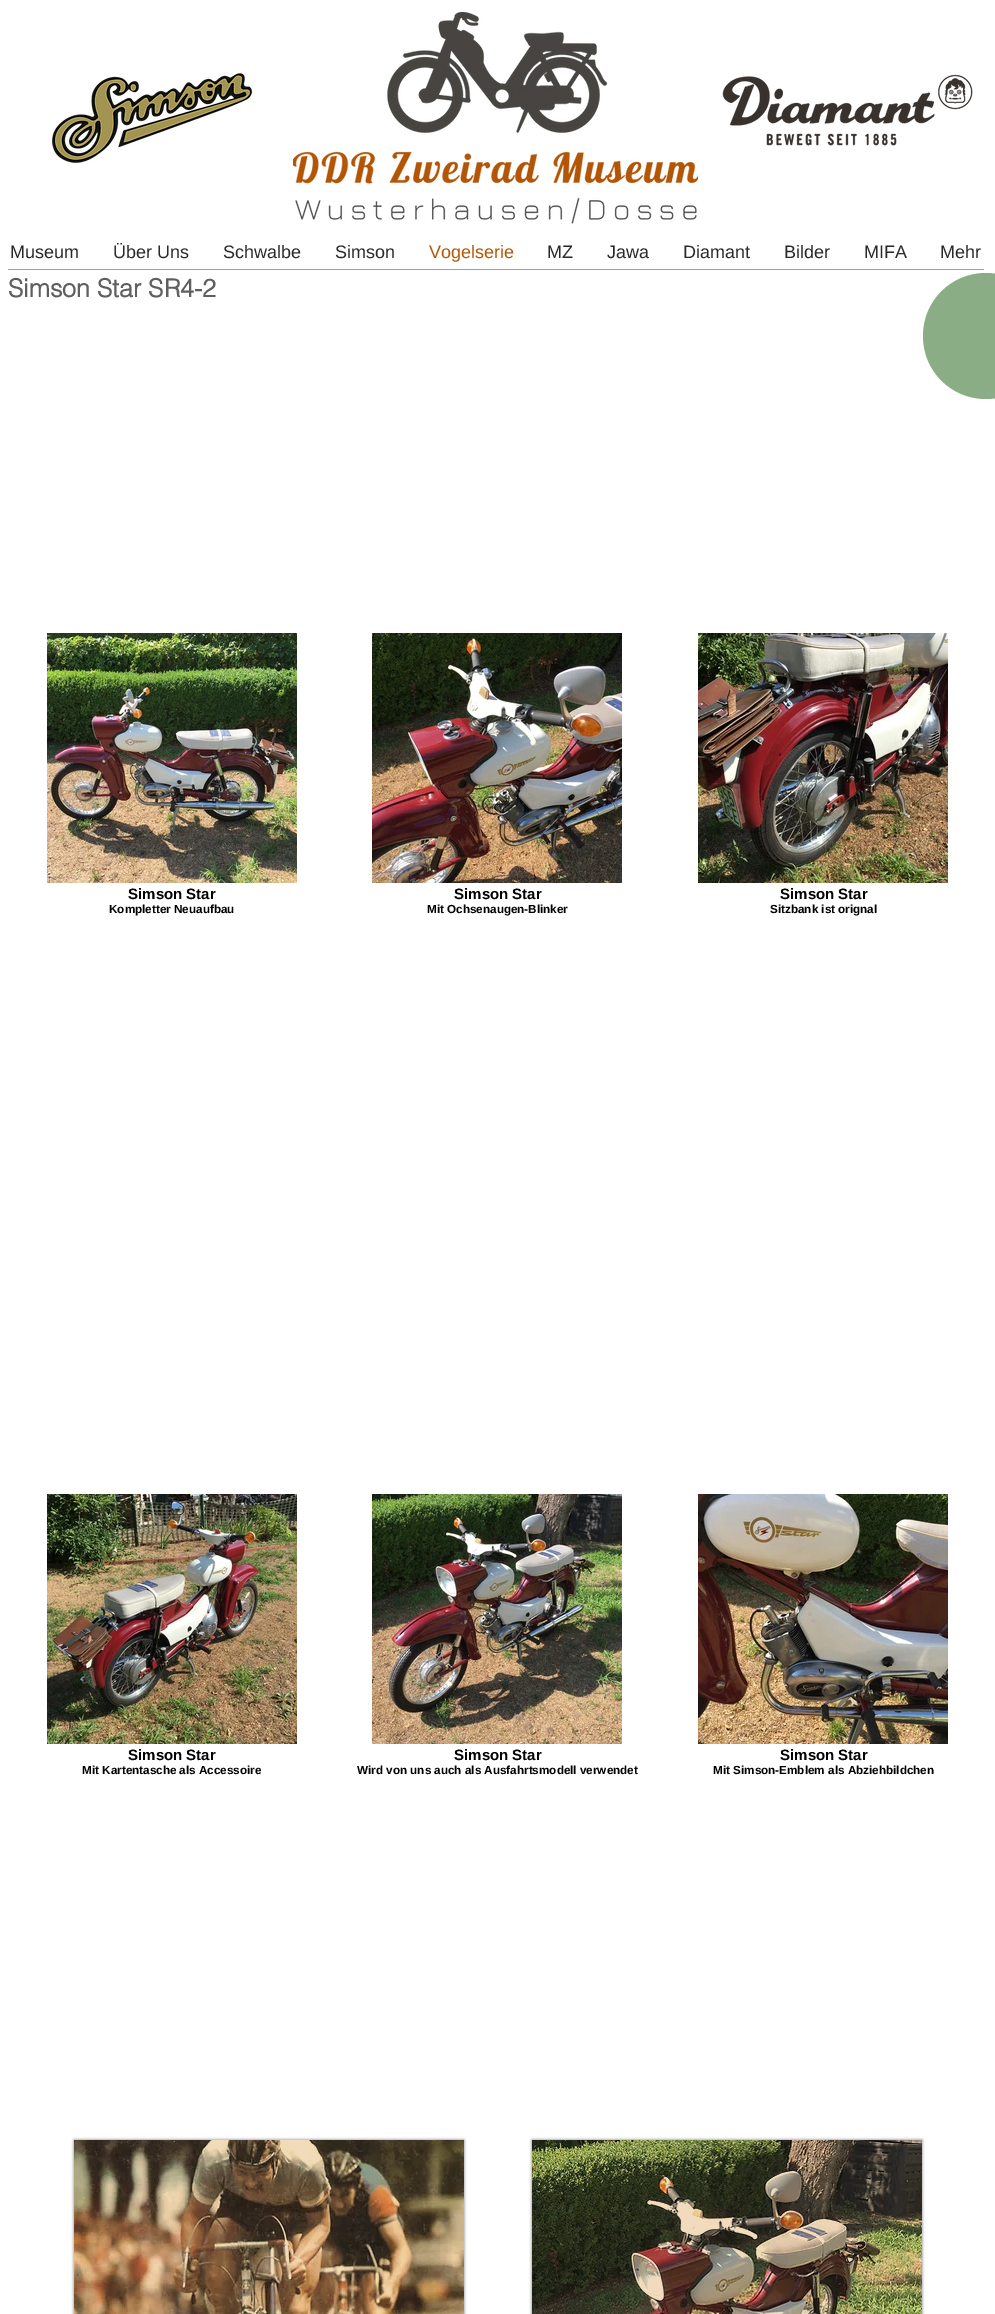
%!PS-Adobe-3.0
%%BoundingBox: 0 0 995 2314
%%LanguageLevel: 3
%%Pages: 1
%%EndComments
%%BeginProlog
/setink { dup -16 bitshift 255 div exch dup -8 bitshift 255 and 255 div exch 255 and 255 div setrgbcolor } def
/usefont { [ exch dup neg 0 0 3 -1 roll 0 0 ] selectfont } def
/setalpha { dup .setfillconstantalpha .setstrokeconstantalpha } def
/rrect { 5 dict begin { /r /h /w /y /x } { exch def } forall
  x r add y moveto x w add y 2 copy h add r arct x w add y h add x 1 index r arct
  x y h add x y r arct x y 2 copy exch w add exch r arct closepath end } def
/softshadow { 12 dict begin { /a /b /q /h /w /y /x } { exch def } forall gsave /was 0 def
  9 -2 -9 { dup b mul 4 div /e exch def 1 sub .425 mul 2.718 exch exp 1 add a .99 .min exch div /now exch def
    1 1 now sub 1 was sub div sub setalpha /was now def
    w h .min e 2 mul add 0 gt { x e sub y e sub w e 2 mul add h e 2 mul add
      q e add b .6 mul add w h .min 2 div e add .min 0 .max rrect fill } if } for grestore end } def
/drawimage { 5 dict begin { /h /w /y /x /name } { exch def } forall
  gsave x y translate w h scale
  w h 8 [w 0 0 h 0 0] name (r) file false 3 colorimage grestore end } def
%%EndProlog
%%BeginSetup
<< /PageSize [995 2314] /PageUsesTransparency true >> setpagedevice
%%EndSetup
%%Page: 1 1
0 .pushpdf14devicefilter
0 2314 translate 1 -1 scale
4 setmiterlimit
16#FFFFFF setink
0 0 995 2314 rectfill
(img1.raw) 52 73 201 90 drawimage
(img2.raw) 293 12 405 212 drawimage
(img3.raw) 722 74 251 72 drawimage
/LiberationSans-Regular 18 usefont
16#292929 setink
[
    [(Museum) 10 258]
    [(Über Uns) 113 258]
    [(Schwalbe) 223 258]
    [(Simson) 335 258]
] { aload pop moveto show } forall
16#B35605 setink
429 258 moveto (Vogelserie) show
16#292929 setink
[
    [(MZ) 547 258]
    [(Jawa) 607 258]
    [(Diamant) 683 258]
    [(Bilder) 784 258]
    [(MIFA) 864 258]
    [(Mehr) 940 258]
] { aload pop moveto show } forall
16#A0A09F setink
8 269 976 1 rectfill
/helvetica-Bold 25 usefont
16#605E5E setink
8 297 moveto (Simson Star SR4-2) show
16#8BAD85 setink
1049 336 moveto 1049 371 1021 399 986 399 curveto 951 399 923 371 923 336 curveto 923 301 951 273 986 273 curveto 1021 273 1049 301 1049 336 curveto closepath fill
(img4.raw) 47 633 250 250 drawimage
/LiberationSans-Bold 15 usefont
16#000000 setink
128 899 moveto (Simson Star) show
/LiberationSans-Bold 11.7 usefont
109 913 moveto (Kompletter Neuaufbau) show
(img5.raw) 372 633 250 250 drawimage
/LiberationSans-Bold 15 usefont
454 899 moveto (Simson Star) show
/LiberationSans-Bold 11.7 usefont
427 913 moveto (Mit Ochsenaugen-Blinker) show
(img6.raw) 698 633 250 250 drawimage
/LiberationSans-Bold 15 usefont
780 899 moveto (Simson Star) show
/LiberationSans-Bold 11.7 usefont
770 913 moveto (Sitzbank ist orignal) show
(img7.raw) 47 1494 250 250 drawimage
/LiberationSans-Bold 15 usefont
128 1760 moveto (Simson Star) show
/LiberationSans-Bold 11.7 usefont
82 1774 moveto (Mit Kartentasche als Accessoire) show
(img8.raw) 372 1494 250 250 drawimage
/LiberationSans-Bold 15 usefont
454 1760 moveto (Simson Star) show
/LiberationSans-Bold 11.7 usefont
357 1774 moveto (Wird von uns auch als Ausfahrtsmodell verwendet) show
(img9.raw) 698 1494 250 250 drawimage
/LiberationSans-Bold 15 usefont
780 1760 moveto (Simson Star) show
/LiberationSans-Bold 11.7 usefont
713 1774 moveto (Mit Simson-Emblem als Abziehbildchen) show
74 2140 390 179 0 1.5 0.5 softshadow
(img10.raw) 74 2140 390 174 drawimage
532 2140 390 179 0 1.5 0.5 softshadow
(img11.raw) 532 2140 390 174 drawimage
.poppdf14devicefilter showpage
%%EOF
